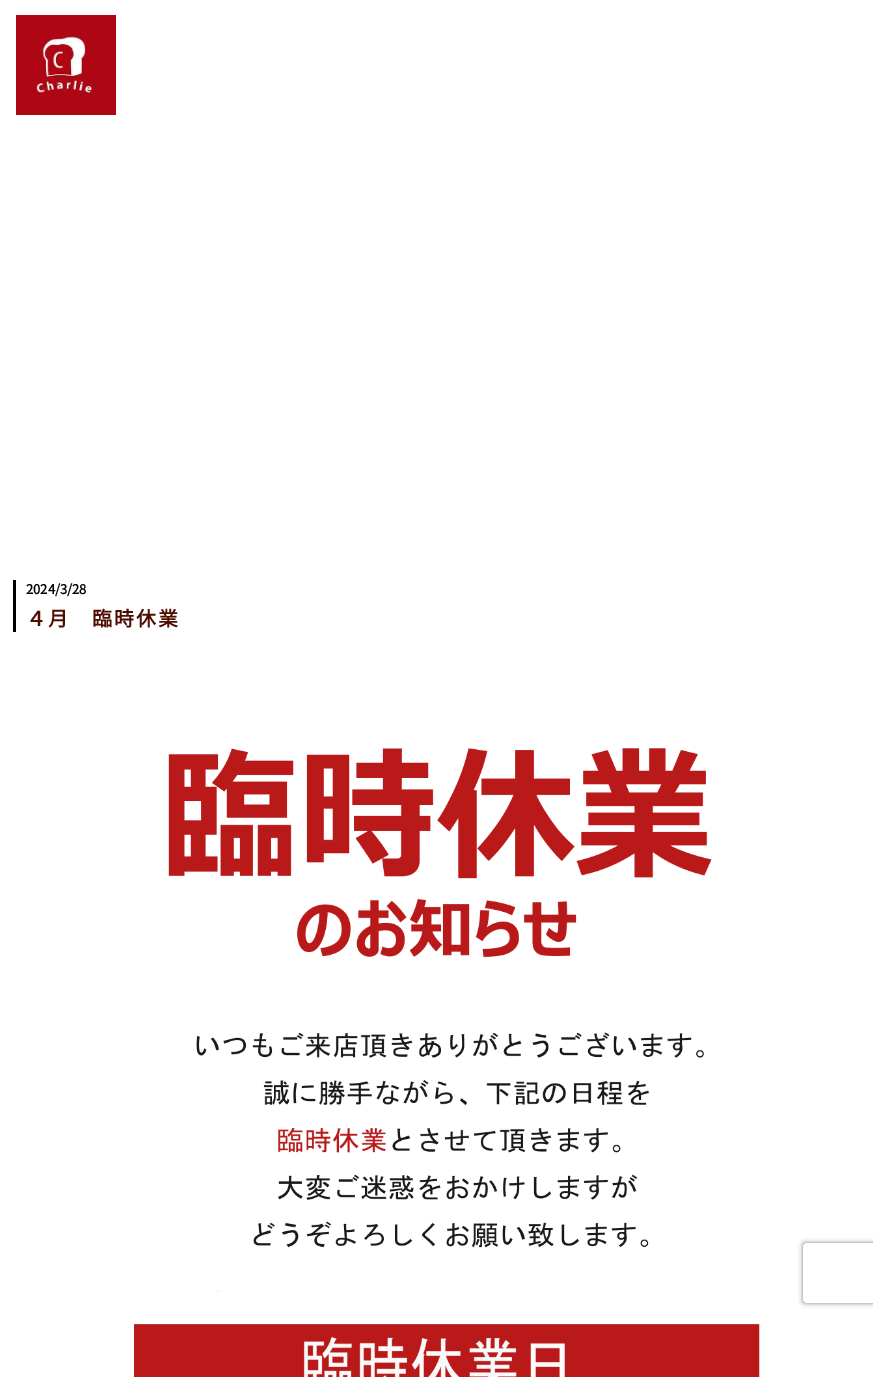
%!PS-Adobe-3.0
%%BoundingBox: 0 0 873 1377
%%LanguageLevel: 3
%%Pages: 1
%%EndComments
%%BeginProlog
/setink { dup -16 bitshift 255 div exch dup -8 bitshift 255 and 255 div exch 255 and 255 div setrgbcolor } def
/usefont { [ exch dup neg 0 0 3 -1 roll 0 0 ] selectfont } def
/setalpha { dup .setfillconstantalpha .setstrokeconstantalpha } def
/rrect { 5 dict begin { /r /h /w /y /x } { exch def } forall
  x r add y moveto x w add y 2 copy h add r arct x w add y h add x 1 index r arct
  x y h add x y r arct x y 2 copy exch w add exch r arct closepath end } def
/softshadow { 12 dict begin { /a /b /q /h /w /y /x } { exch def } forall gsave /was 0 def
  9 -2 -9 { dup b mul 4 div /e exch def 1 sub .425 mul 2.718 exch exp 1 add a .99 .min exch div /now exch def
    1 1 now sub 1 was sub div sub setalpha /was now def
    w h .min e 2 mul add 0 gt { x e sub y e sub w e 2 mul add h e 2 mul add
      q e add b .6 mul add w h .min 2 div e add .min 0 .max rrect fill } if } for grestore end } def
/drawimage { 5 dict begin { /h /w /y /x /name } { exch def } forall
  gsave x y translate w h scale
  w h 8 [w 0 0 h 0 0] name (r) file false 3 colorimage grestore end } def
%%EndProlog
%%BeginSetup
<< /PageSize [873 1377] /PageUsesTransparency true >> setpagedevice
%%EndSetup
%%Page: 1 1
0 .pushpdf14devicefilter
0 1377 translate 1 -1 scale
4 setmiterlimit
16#FFFFFF setink
0 0 873 1377 rectfill
(img1.raw) 16 15 100 100 drawimage
16#000000 setink
13 580 3 52 rectfill
/NotoSansCJKJP-Bold 13 usefont
26 594 moveto (2024/3/28) show
/NotoSansCJKJP-Bold 20 usefont
16#4D0E00 setink
26 626 moveto 2 0 (４月　臨時休業) ashow
(img2.raw) 134 748 626 629 drawimage
gsave
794 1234 moveto 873 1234 lineto 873 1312 lineto 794 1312 lineto closepath 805 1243 moveto 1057 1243 lineto 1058 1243 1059 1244 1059 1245 curveto 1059 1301 lineto 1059 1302 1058 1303 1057 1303 curveto 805 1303 lineto 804 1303 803 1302 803 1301 curveto 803 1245 lineto 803 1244 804 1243 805 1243 curveto closepath eoclip newpath
16#808080 setink
803 1243 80 60 2 2.5 1 softshadow
grestore
.poppdf14devicefilter showpage
%%EOF
